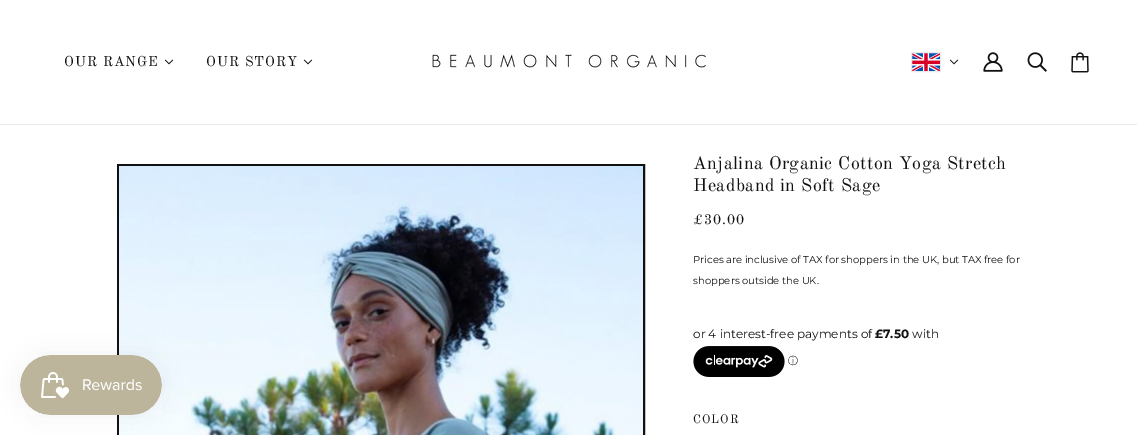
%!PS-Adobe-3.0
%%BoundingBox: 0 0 1137 435
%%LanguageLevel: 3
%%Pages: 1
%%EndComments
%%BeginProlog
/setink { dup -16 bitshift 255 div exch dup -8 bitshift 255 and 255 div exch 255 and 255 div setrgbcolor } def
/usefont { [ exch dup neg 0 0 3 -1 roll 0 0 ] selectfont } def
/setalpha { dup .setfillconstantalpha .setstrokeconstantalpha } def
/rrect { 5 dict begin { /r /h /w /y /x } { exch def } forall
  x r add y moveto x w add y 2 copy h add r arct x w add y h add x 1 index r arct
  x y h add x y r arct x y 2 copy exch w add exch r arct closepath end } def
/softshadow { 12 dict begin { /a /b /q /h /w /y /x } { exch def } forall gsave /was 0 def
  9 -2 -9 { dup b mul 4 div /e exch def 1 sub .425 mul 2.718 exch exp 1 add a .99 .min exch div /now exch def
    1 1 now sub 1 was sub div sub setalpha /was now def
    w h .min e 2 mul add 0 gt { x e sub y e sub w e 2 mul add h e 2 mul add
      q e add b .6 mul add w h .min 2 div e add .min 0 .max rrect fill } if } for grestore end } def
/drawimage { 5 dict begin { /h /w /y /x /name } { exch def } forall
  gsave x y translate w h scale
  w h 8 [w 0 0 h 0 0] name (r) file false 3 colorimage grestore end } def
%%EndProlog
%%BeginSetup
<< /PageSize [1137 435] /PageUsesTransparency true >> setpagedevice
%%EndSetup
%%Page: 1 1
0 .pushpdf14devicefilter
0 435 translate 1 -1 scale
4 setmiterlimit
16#FFFFFF setink
0 0 1137 435 rectfill
16#EAEAEA setink
0 124 1137 1 rectfill
/OldStandardTT-Regular 14 usefont
16#111111 setink
64 66 moveto 1 0 (OUR RANGE) ashow
(img1.raw) 164 59 10 6 drawimage
206 66 moveto 1 0 (OUR STORY) ashow
(img1.raw) 303 59 10 6 drawimage
(img2.raw) 432 54 274 14 drawimage
(img3.raw) 912 53 28 18 drawimage
16#EAEAEA setink
911.5 52.5 29 19 rectstroke
(img1.raw) 949 59 10 6 drawimage
(img4.raw) 983 52 20 20 drawimage
(img5.raw) 1027 52 20 20 drawimage
(img6.raw) 1071 52 18 21 drawimage
16#111111 setink
2 setlinewidth
118 165 526 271 rectstroke
(img7.raw) 119 166 524 269 drawimage
/OldStandardTT-Regular 18 usefont
693 169 moveto 0.45 0 (Anjalina Organic Cotton Yoga Stretch) ashow
693 191 moveto 0.45 0 (Headband in Soft Sage) ashow
/OldStandardTT-Regular 14 usefont
693 224 moveto 1 0 (£30.00) ashow
/Montserrat-Regular 10 usefont
693 263 moveto (Prices are inclusive of TAX for shoppers in the UK, but TAX free for) show
693 284 moveto (shoppers outside the UK.) show
/Montserrat-Regular 12 usefont
693 338 moveto (or 4 interest-free payments of) show
/Montserrat-Bold 12 usefont
875 338 moveto (£7.50) show
/Montserrat-Regular 12 usefont
912 338 moveto (with) show
(img8.raw) 693 346 92 31 drawimage
/WenQuanYiZenHei-Medium 10 usefont
788 364 moveto (ⓘ) show
/OldStandardTT-Regular 12 usefont
693 423 moveto 1 0 (COLOR) ashow
16#000000 setink
20 355 142 60 30 12.5 0.05 softshadow
(img9.raw) 20 355 142 60 drawimage
.poppdf14devicefilter showpage
%%EOF
